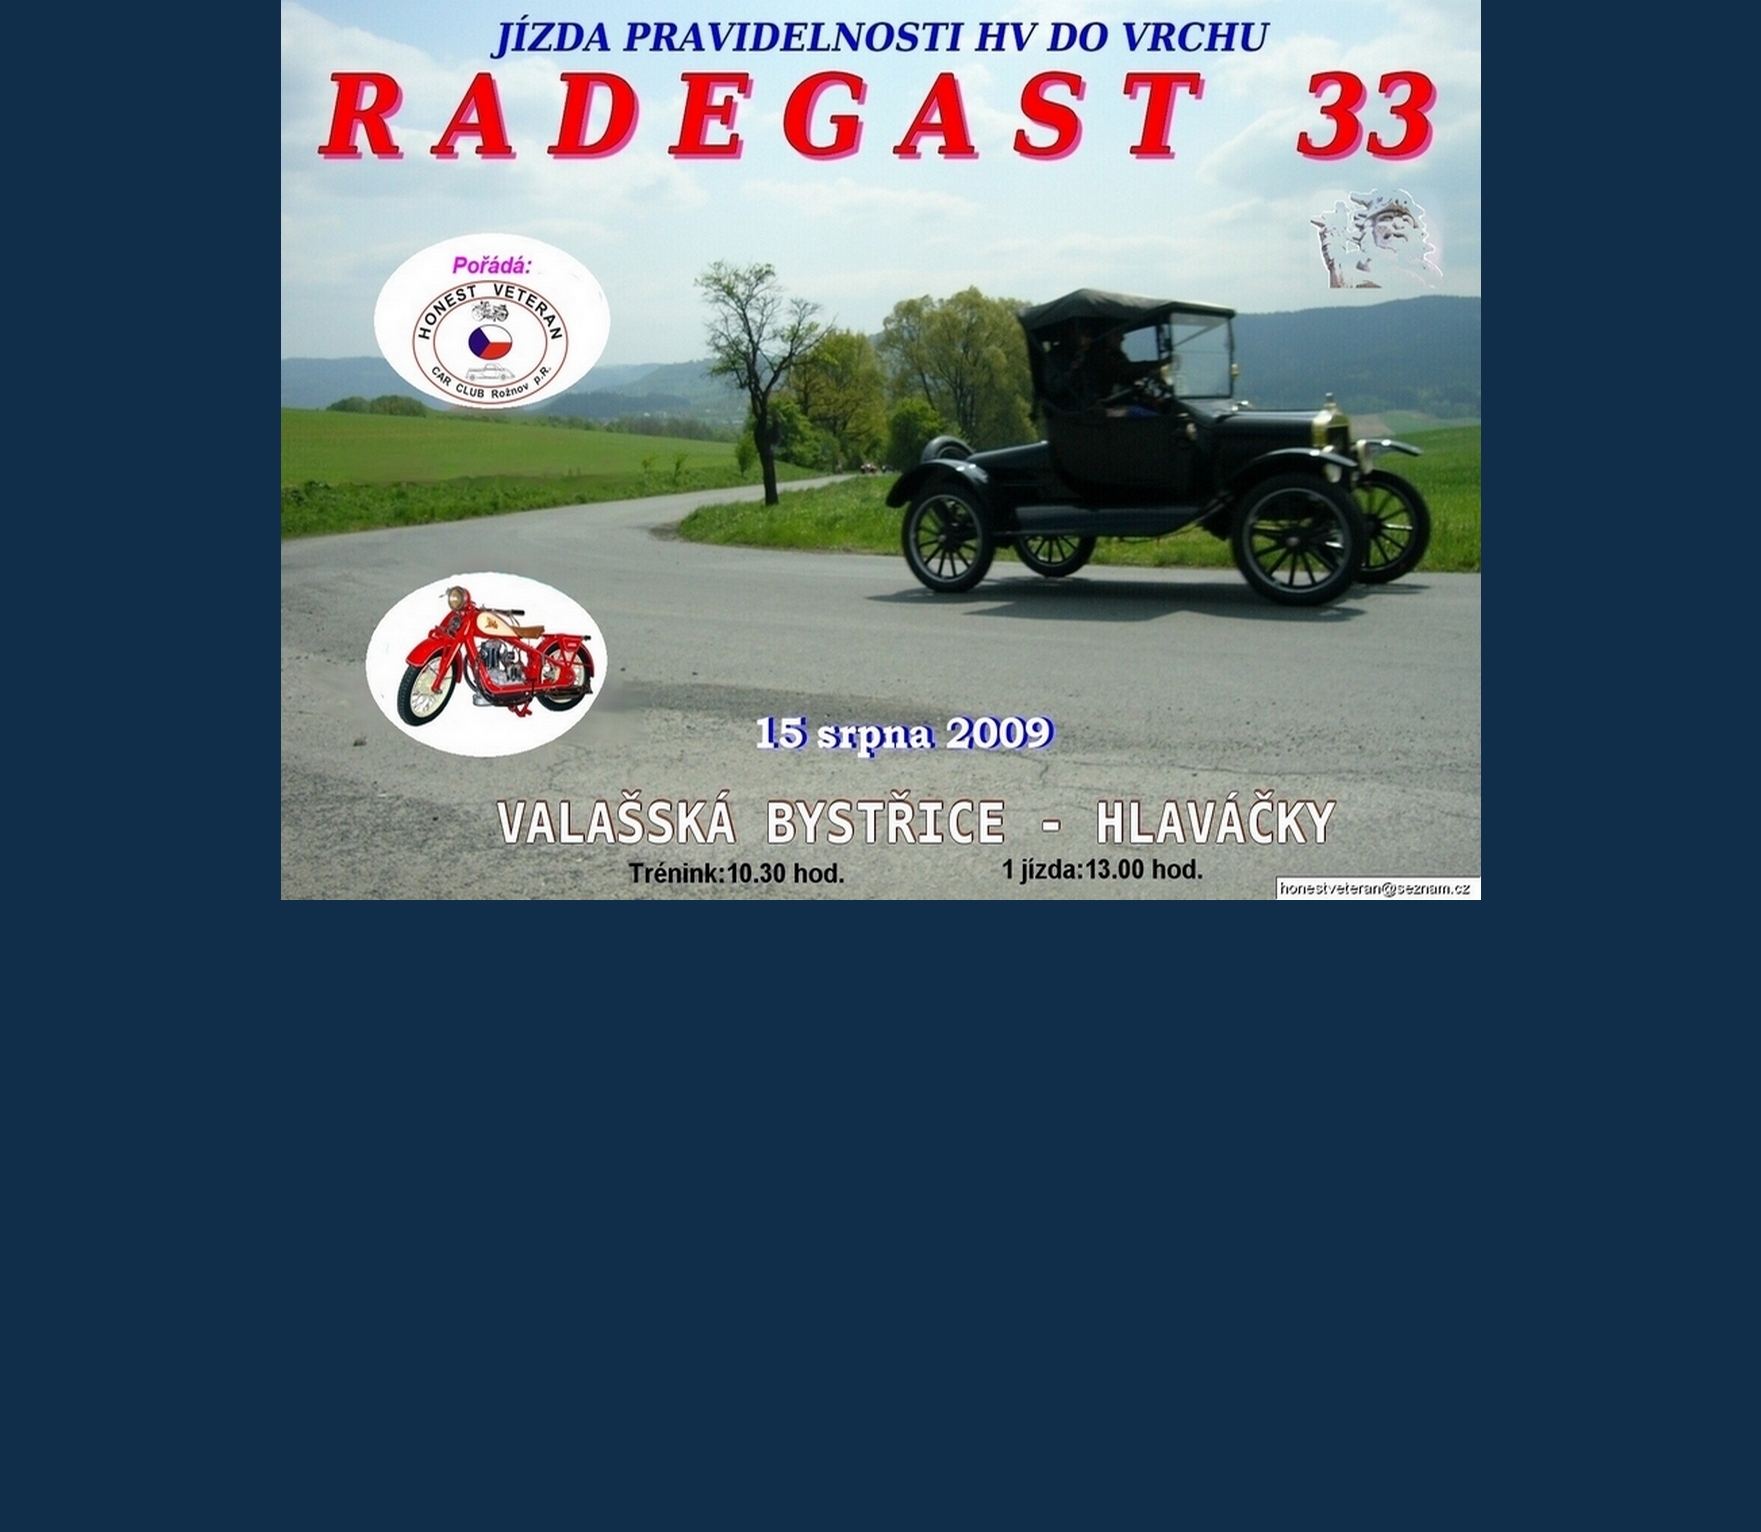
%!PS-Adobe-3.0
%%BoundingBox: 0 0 1761 1532
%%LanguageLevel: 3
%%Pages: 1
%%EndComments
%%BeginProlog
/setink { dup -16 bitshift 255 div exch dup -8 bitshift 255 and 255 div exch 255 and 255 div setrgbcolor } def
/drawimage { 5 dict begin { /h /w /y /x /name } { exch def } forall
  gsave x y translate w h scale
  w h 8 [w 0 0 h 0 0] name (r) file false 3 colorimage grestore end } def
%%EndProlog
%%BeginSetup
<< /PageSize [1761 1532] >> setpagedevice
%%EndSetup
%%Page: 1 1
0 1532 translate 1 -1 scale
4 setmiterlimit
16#102E4A setink
0 0 1761 1532 rectfill
(img1.raw) 281 0 1200 900 drawimage
showpage
%%EOF
